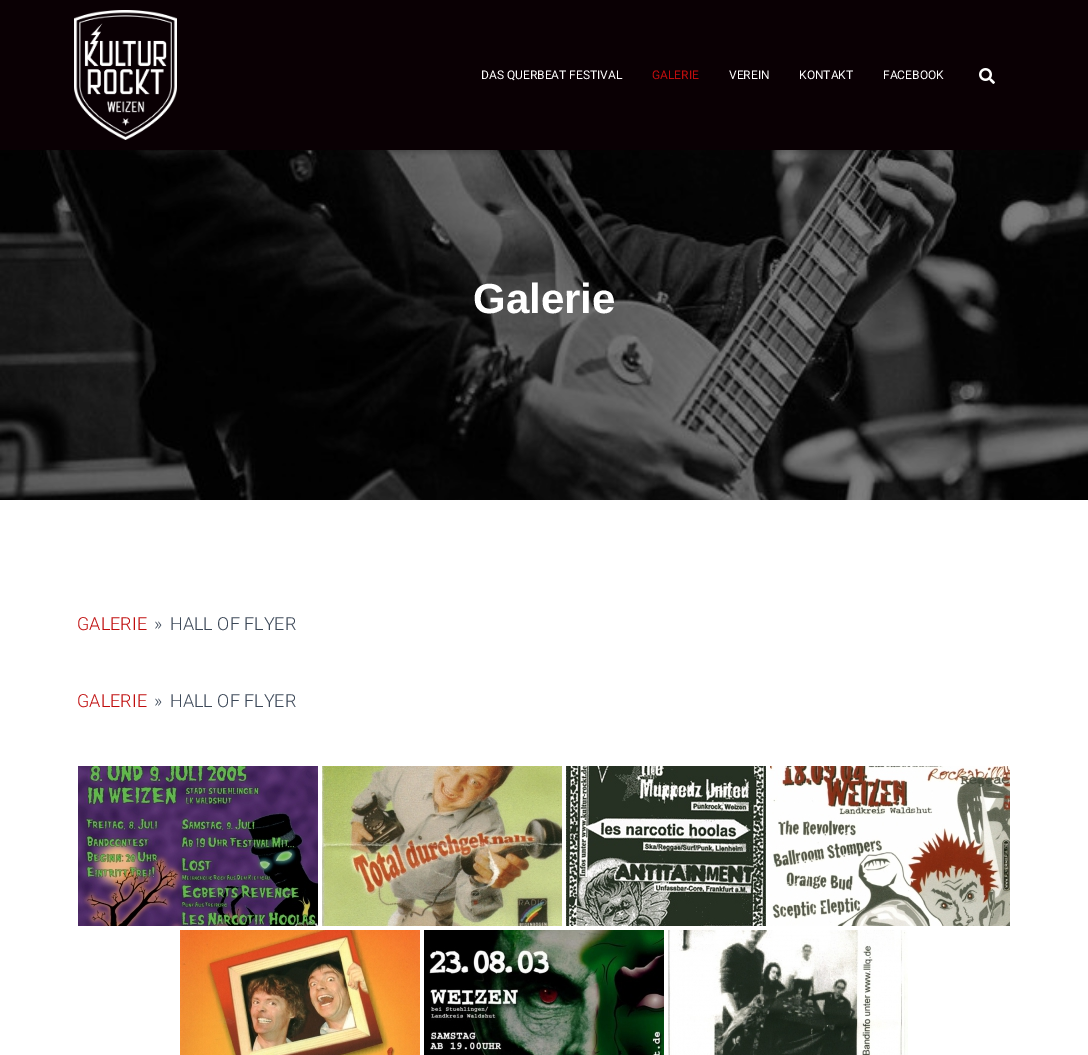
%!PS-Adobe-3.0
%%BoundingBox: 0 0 1088 1055
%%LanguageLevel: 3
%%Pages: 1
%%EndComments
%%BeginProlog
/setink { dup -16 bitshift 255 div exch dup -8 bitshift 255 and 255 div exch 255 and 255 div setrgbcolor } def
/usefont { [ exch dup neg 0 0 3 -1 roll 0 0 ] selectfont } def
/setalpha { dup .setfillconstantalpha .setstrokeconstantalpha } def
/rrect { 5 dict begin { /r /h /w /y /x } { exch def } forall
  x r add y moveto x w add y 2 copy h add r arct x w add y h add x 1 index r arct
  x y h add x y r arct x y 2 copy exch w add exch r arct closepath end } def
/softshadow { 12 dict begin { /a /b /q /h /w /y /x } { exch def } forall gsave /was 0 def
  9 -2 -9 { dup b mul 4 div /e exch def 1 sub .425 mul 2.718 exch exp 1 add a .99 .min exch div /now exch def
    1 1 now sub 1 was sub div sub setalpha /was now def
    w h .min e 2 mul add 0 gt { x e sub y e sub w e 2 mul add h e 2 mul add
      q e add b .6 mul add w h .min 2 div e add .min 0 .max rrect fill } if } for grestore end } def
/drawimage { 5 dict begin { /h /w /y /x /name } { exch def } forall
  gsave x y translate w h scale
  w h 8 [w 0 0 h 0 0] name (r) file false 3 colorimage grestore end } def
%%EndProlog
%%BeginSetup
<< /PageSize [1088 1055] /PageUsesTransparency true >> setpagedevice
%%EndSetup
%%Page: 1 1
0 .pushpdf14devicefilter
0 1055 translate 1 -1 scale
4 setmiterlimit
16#FFFFFF setink
0 0 1088 1055 rectfill
(img3.raw) 0 150 1088 350 drawimage
16#000000 setink
2 6 1084 146 0 2.5 0.1 softshadow
0 1 1088 150 0 5 0.12 softshadow
6 7 1076 138 0 5 0.42 softshadow
16#0A0004 setink
0 0 1088 150 rectfill
(img1.raw) 74 10 103 130 drawimage
/Roboto-Regular 12 usefont
16#FFFFFF setink
481 79 moveto (DAS QUERBEAT FESTIVAL) show
16#C00D0D setink
652 79 moveto (GALERIE) show
16#FFFFFF setink
[
    [(VEREIN) 729 79]
    [(KONTAKT) 799 79]
    [(FACEBOOK) 883 79]
] { aload pop moveto show } forall
(img2.raw) 979 68 16 16 drawimage
/LiberationSans-Bold 42 usefont
473 313 moveto (Galerie) show
/Roboto-Light 18 usefont
16#C00D0D setink
77 630 moveto (GALERIE) show
16#3C4858 setink
154 630 moveto (») show
170 630 moveto (HALL OF FLYER) show
16#C00D0D setink
77 707 moveto (GALERIE) show
16#3C4858 setink
154 707 moveto (») show
170 707 moveto (HALL OF FLYER) show
(img4.raw) 78 766 240 160 drawimage
(img5.raw) 322 766 240 160 drawimage
(img6.raw) 566 766 200 160 drawimage
(img7.raw) 770 766 240 160 drawimage
(img8.raw) 180 930 240 125 drawimage
(img9.raw) 424 930 240 125 drawimage
(img10.raw) 668 930 240 125 drawimage
.poppdf14devicefilter showpage
%%EOF
